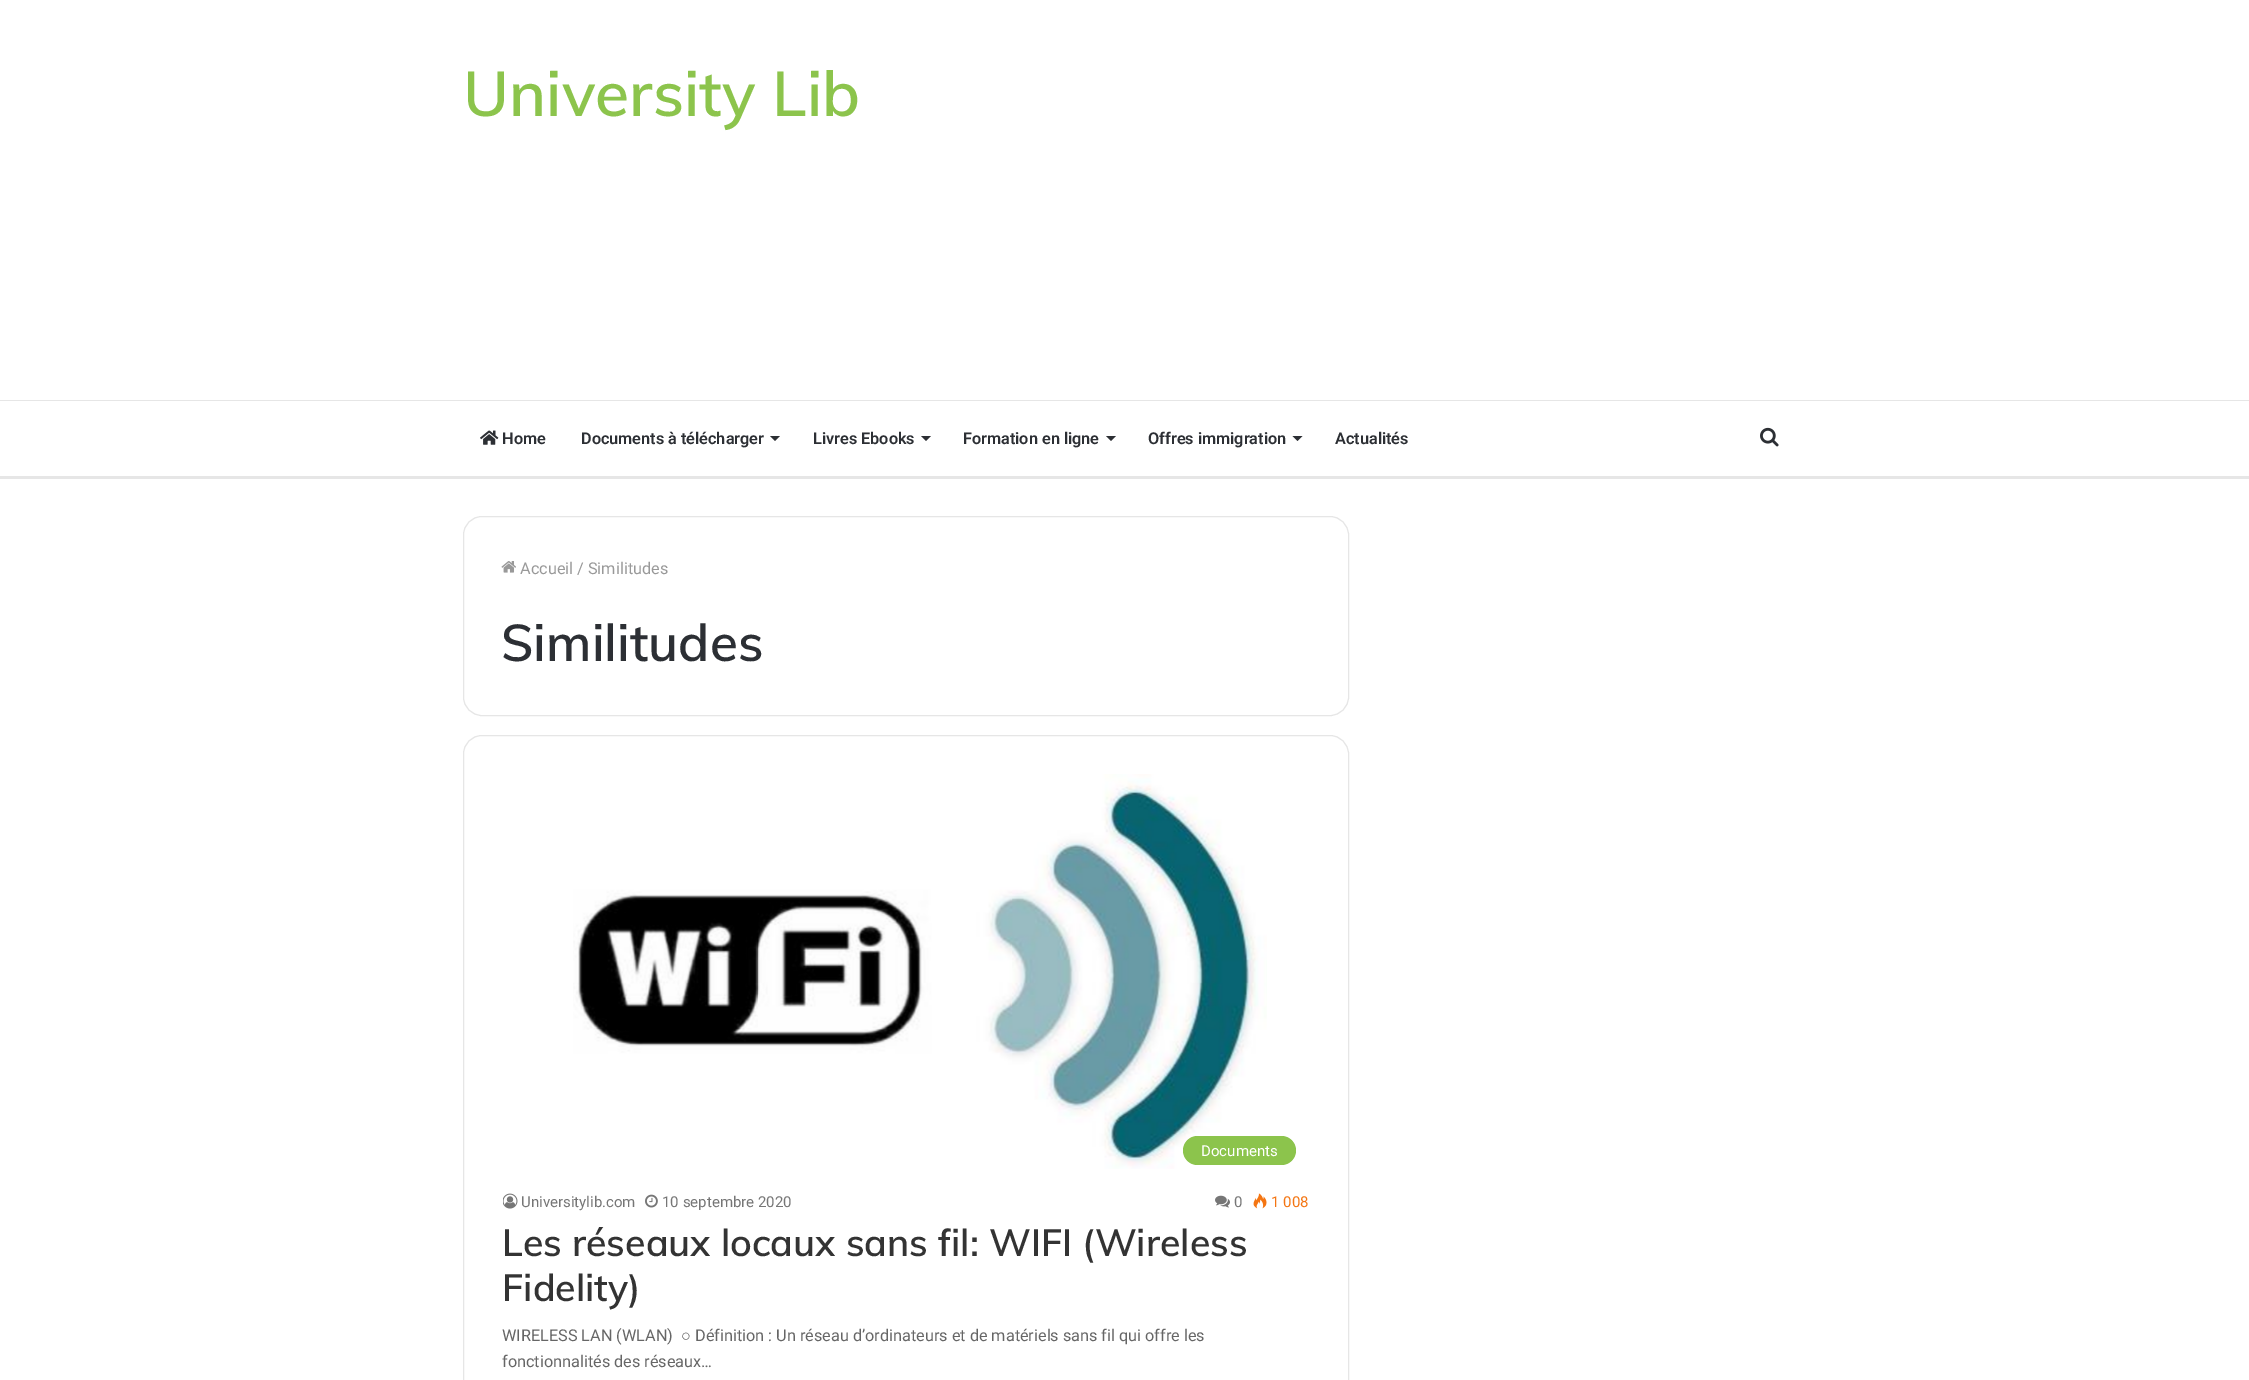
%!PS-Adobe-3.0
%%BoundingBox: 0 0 2249 1380
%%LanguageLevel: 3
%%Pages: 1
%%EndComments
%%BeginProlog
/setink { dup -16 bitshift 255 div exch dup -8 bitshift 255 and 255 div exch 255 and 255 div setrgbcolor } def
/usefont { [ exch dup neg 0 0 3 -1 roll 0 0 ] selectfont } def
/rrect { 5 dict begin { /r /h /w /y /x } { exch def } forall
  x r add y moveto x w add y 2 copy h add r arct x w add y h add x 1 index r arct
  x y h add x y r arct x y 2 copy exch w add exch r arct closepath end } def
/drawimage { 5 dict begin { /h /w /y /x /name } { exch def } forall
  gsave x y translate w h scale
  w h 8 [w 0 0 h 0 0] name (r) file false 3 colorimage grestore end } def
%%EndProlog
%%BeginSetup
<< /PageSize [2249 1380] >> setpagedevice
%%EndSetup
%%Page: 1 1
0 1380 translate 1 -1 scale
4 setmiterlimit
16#FFFFFF setink
0 0 2249 1380 rectfill
/Muli-SemiBold 62.5 usefont
16#8CC44C setink
463 116 moveto (University Lib) show
16#E6E6E6 setink
0 400 2249 1 rectfill
0 476 2249 3 rectfill
(img1.raw) 480 430 19 15 drawimage
/Roboto-SemiBold 16.25 usefont
16#2C2F34 setink
502 444 moveto (Home) show
581 444 moveto (Documents à télécharger) show
770 436 moveto 780 436 lineto 775 441 lineto closepath fill
813 444 moveto (Livres Ebooks) show
921 436 moveto 931 436 lineto 926 441 lineto closepath fill
963 444 moveto (Formation en ligne) show
1106 436 moveto 1116 436 lineto 1111 441 lineto closepath fill
1148 444 moveto (Offres immigration) show
1292.5 436 moveto 1302.5 436 lineto 1297.5 441 lineto closepath fill
1335 444 moveto (Actualités) show
(img2.raw) 1760 427 19 20 drawimage
16#E6E6E6 setink
463.5 516.5 885 199 18.5 rrect stroke
(img3.raw) 501 561 15 12 drawimage
/Roboto-Regular 16.25 usefont
16#999999 setink
520 574 moveto (Accueil / Similitudes) show
/Muli-SemiBold 51.25 usefont
16#2C2F34 setink
501 661 moveto (Similitudes) show
16#E6E6E6 setink
463.5 735.5 885 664 18.5 rrect stroke
(img4.raw) 573 774 694 395 drawimage
16#8CC44C setink
1183 1136 113 29 14.5 rrect fill
/Roboto-Regular 15 usefont
16#FFFFFF setink
1201 1156 moveto (Documents) show
(img5.raw) 503 1193 15 16 drawimage
16#767676 setink
521 1207 moveto (Universitylib.com) show
(img6.raw) 645 1194 13 14 drawimage
662 1207 moveto (10 septembre 2020) show
(img7.raw) 1215 1195 15 13 drawimage
1234 1207 moveto (0) show
(img8.raw) 1253 1193 14 16 drawimage
16#F47512 setink
1271 1207 moveto (1 008) show
/Muli-SemiBold 37.5 usefont
16#333333 setink
502 1256 moveto (Les réseaux locaux sans fil: WIFI \(Wireless) show
502 1301 moveto (Fidelity\)) show
/Roboto-Regular 16.25 usefont
16#666666 setink
502 1341 moveto (WIRELESS LAN \(WLAN\)) show
/LiberationSans-Regular 16.25 usefont
681 1341 moveto (○) show
/Roboto-Regular 16.25 usefont
695 1341 moveto (Définition : Un réseau d’ordinateurs et de matériels sans fil qui offre les) show
502 1367 moveto (fonctionnalités des réseaux…) show
showpage
%%EOF
